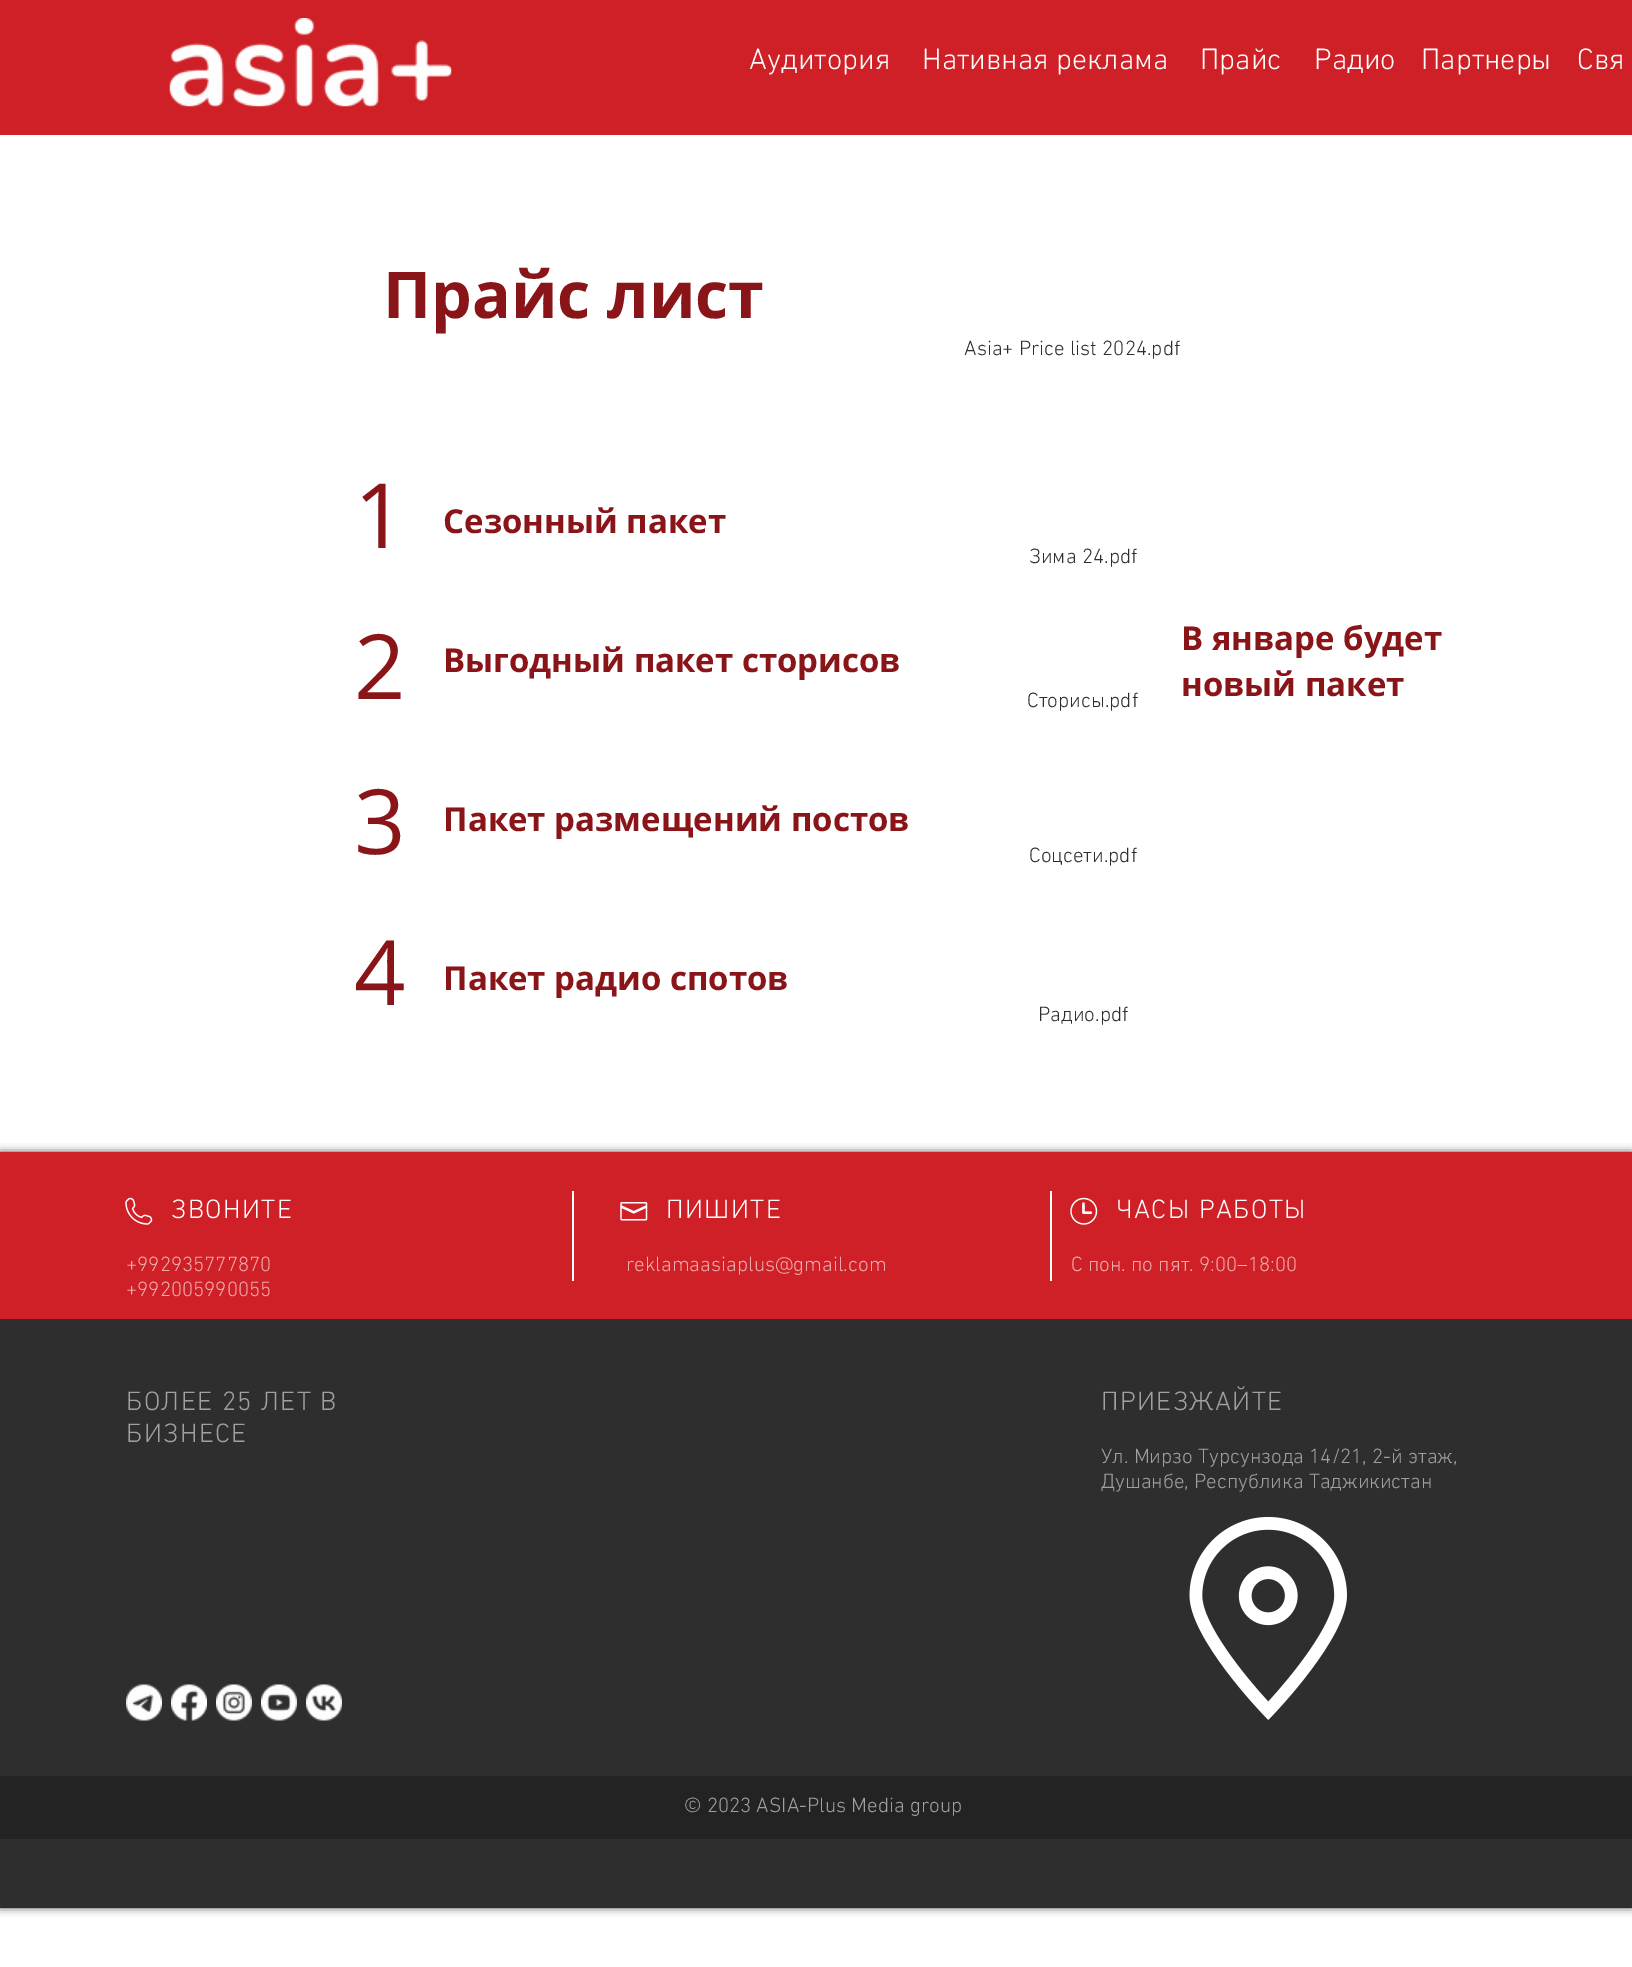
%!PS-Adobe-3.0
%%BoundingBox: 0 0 1632 1967
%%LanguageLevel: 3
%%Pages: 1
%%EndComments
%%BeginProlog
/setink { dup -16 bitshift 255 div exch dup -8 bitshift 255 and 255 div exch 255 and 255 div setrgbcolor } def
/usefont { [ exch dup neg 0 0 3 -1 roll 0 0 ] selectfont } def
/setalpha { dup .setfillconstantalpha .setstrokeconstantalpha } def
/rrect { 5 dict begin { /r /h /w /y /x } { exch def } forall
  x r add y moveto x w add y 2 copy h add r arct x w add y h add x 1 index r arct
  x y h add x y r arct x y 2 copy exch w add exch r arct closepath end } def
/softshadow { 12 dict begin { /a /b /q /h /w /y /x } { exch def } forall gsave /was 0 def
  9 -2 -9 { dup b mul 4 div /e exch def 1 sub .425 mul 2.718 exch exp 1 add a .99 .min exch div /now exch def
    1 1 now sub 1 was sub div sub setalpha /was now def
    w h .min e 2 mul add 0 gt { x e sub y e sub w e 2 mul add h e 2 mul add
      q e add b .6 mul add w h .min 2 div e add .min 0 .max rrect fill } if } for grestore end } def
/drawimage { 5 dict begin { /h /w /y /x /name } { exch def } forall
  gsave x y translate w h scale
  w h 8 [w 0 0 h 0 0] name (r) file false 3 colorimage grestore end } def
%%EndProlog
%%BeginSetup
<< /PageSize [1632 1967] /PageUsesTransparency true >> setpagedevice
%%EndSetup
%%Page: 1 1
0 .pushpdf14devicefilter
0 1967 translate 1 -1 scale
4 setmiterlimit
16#FFFFFF setink
0 0 1632 1967 rectfill
16#CE2026 setink
0 0 1632 135 rectfill
(img1.raw) 169 18 283 89 drawimage
/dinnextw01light-Light 30 usefont
16#FFFFFF setink
[
    [(Аудитория) 749 69]
    [(Нативная реклама) 922 69]
    [(Прайс) 1200 69]
    [(Радио) 1314 69]
    [(Партнеры) 1421 69]
    [(Свя) 1577 69]
] { aload pop moveto show } forall
/OpenSans-Bold 64.5 usefont
16#891519 setink
383 318 moveto (Прайс лист) show
/dinnextw01light-Light 21 usefont
16#2F2E2E setink
964 355 moveto (Asia+ Price list 2024.pdf) show
/OpenSans-Regular 90 usefont
16#891519 setink
354 548 moveto (1) show
/OpenSans-Bold 33 usefont
443 533 moveto (Cезонный пакет) show
/dinnextw01light-Light 21 usefont
16#2F2E2E setink
1029 563 moveto (Зима 24.pdf) show
/OpenSans-Regular 90 usefont
16#891519 setink
354 699 moveto (2) show
/OpenSans-Bold 33 usefont
[
    [(Выгодный пакет сторисов) 443 672]
    [(В январе будет) 1181 650]
    [(новый пакет) 1181 696]
] { aload pop moveto show } forall
/dinnextw01light-Light 21 usefont
16#2F2E2E setink
1027 707 moveto (Сторисы.pdf) show
/OpenSans-Regular 90 usefont
16#891519 setink
354 854 moveto (3) show
/OpenSans-Bold 33 usefont
443 831 moveto (Пакет размещений постов) show
/dinnextw01light-Light 21 usefont
16#2F2E2E setink
1029 862 moveto (Соцсети.pdf) show
/OpenSans-Regular 90 usefont
16#891519 setink
354 1005 moveto (4) show
/OpenSans-Bold 33 usefont
443 990 moveto (Пакет радио спотов) show
/dinnextw01light-Light 21 usefont
16#2F2E2E setink
1038 1021 moveto (Радио.pdf) show
16#000000 setink
0 1152 1632 756 0 4 0.7 softshadow
16#2F2E2E setink
0 1319 1632 589 rectfill
16#CE2026 setink
0 1152 1632 167 rectfill
(img2.raw) 125 1197 28 28 drawimage
/dinnextw01light-Light 27 usefont
16#FFFFFF setink
171 1218 moveto 1.4 0 (ЗВОНИТЕ) ashow
572 1191 2 90 rectfill
(img3.raw) 620 1202 28 19 drawimage
666 1218 moveto 1.4 0 (ПИШИТЕ) ashow
1050 1191 2 90 rectfill
(img4.raw) 1070 1197 28 28 drawimage
1116 1218 moveto 1.4 0 (ЧАСЫ РАБОТЫ) ashow
/dinnextw01light-Light 21 usefont
16#EFABAE setink
[
    [(+992935777870) 126 1271]
    [(+992005990055) 126 1296]
    [(reklamaasiaplus@gmail.com) 626 1271]
    [(С пон. по пят. 9:00–18:00) 1071 1271]
] { aload pop moveto show } forall
/dinnextw01light-Light 27 usefont
16#A0A09F setink
126 1410 moveto 1.4 0 (БОЛЕЕ 25 ЛЕТ В) ashow
126 1442 moveto 1.4 0 (БИЗНЕСЕ) ashow
1101 1410 moveto 1.4 0 (ПРИЕЗЖАЙТЕ) ashow
/dinnextw01light-Light 21 usefont
1101 1463 moveto (Ул. Мирзо Турсунзода 14/21, 2-й этаж,) show
1101 1488 moveto (Душанбе, Республика Таджикистан) show
(img5.raw) 126 1684 36 37 drawimage
(img6.raw) 171 1684 36 37 drawimage
(img7.raw) 216 1684 36 37 drawimage
(img8.raw) 261 1684 36 37 drawimage
(img9.raw) 306 1684 36 37 drawimage
(img10.raw) 1189 1516 158 204 drawimage
16#242323 setink
0 1776 1632 63 rectfill
16#A0A09F setink
684 1812 moveto (© 2023 ASIA-Plus Media group) show
.poppdf14devicefilter showpage
%%EOF
